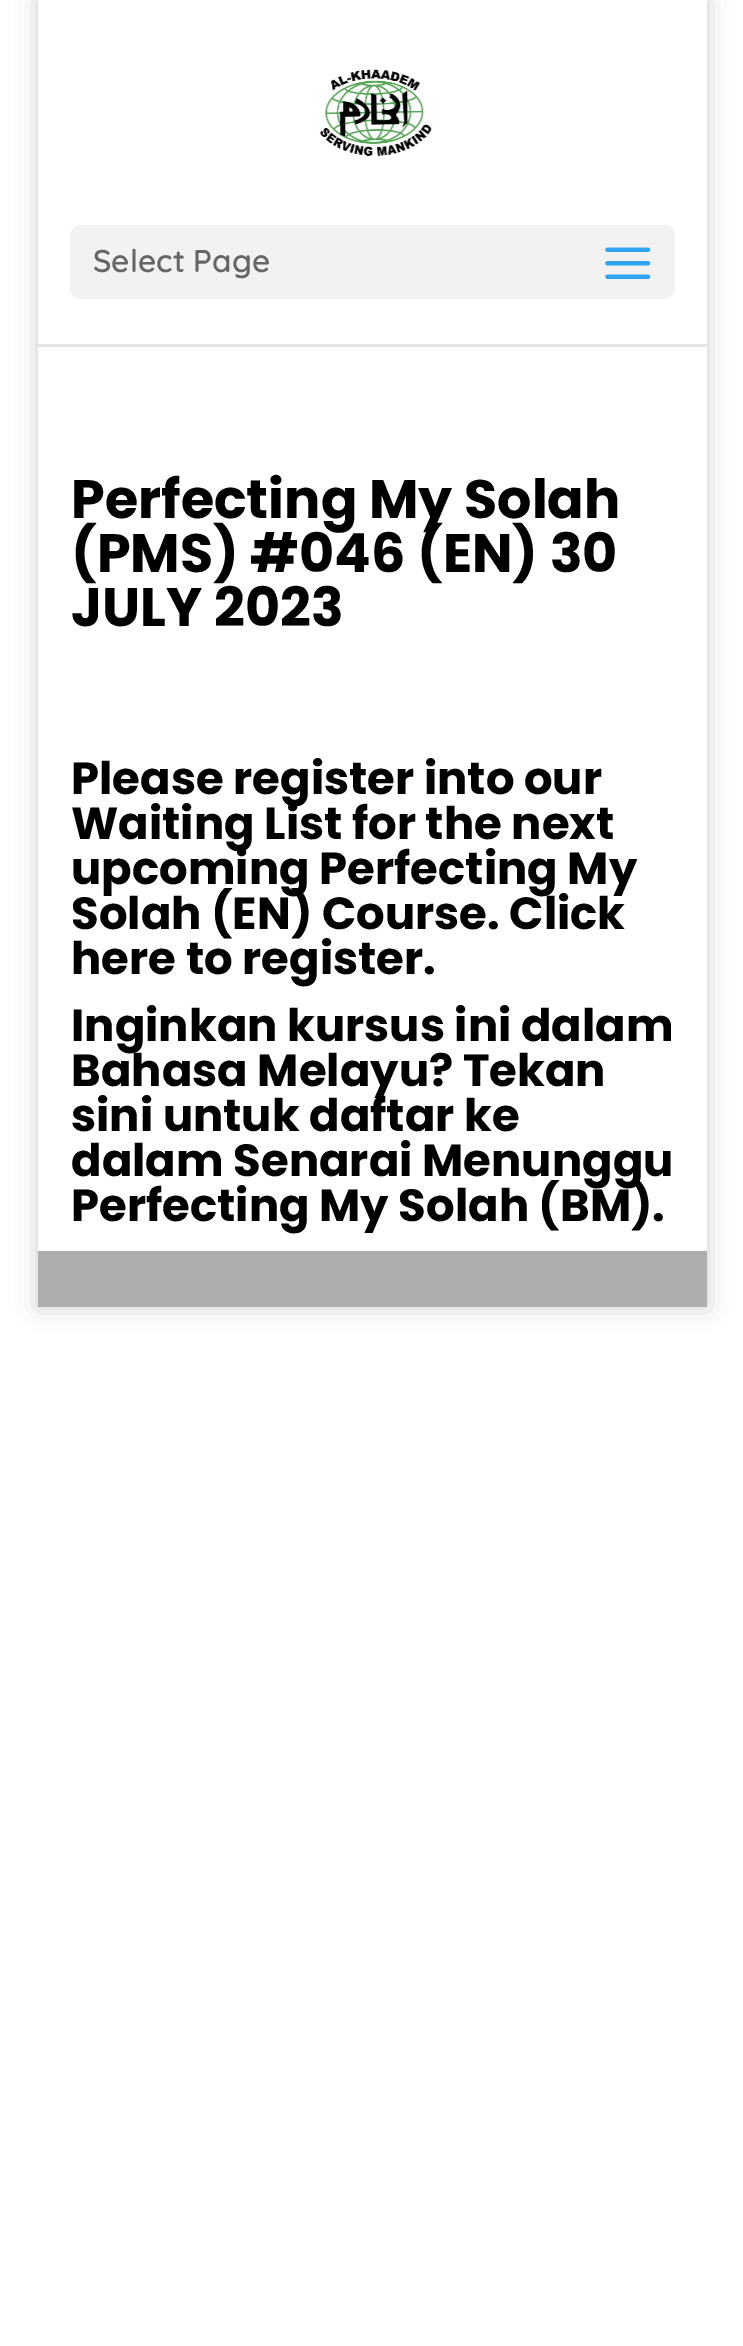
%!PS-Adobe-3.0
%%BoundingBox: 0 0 743 2346
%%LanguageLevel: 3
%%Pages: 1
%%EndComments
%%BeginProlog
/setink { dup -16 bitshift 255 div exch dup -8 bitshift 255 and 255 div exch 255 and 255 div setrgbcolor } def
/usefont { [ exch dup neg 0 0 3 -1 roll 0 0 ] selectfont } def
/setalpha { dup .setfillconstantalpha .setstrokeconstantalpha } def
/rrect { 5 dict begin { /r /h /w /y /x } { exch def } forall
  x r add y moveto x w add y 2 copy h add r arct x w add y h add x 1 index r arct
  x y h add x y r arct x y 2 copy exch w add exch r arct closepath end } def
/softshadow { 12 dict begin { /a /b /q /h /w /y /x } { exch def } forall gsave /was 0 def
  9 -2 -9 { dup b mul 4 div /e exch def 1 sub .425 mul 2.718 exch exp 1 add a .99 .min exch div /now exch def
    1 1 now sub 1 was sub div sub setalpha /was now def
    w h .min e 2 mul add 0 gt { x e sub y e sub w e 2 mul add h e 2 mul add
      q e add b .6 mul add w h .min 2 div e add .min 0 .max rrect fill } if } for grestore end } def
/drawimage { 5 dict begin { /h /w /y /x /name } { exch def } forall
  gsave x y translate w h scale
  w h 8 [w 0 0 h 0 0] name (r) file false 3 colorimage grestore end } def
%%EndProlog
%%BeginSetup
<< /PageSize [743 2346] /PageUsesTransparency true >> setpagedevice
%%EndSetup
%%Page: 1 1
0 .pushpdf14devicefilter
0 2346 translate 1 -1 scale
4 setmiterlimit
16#FFFFFF setink
0 0 743 2346 rectfill
16#000000 setink
38 0 669 1307 0 11 0.2 softshadow
16#FFFFFF setink
38 344 669 907 rectfill
0.1 setalpha
16#000000 setink
38 2 moveto 38 347 lineto 707 347 lineto 707 2 lineto 706 2 lineto 706 344 lineto 38 344 lineto closepath fill
1 setalpha
16#FFFFFF setink
38 0 669 344 rectfill
(img1.raw) 320 69 112 87 drawimage
16#F2F2F2 setink
70 225 605 74 11 rrect fill
/Quicksand-SemiBold 31.5 usefont
16#666666 setink
93 272 moveto (Select Page) show
(img2.raw) 605 247 46 32 drawimage
/Poppins-Bold 54 usefont
16#000000 setink
[
    [(Perfecting My Solah) 71 518]
    [(\(PMS\) #046 \(EN\) 30) 71 572]
    [(JULY 2023) 71 626]
] { aload pop moveto show } forall
/Poppins-Bold 45 usefont
[
    [(Please register into our) 71 794]
    [(Waiting List for the next) 71 839]
    [(upcoming Perfecting My) 71 884]
    [(Solah \(EN\) Course. Click) 71 929]
    [(here to register.) 71 974]
    [(Inginkan kursus ini dalam) 71 1041]
    [(Bahasa Melayu? Tekan) 71 1086]
    [(sini untuk daftar ke) 71 1131]
    [(dalam Senarai Menunggu) 71 1176]
    [(Perfecting My Solah \(BM\).) 71 1221]
] { aload pop moveto show } forall
16#ADADAD setink
38 1251 669 56 rectfill
.poppdf14devicefilter showpage
%%EOF
